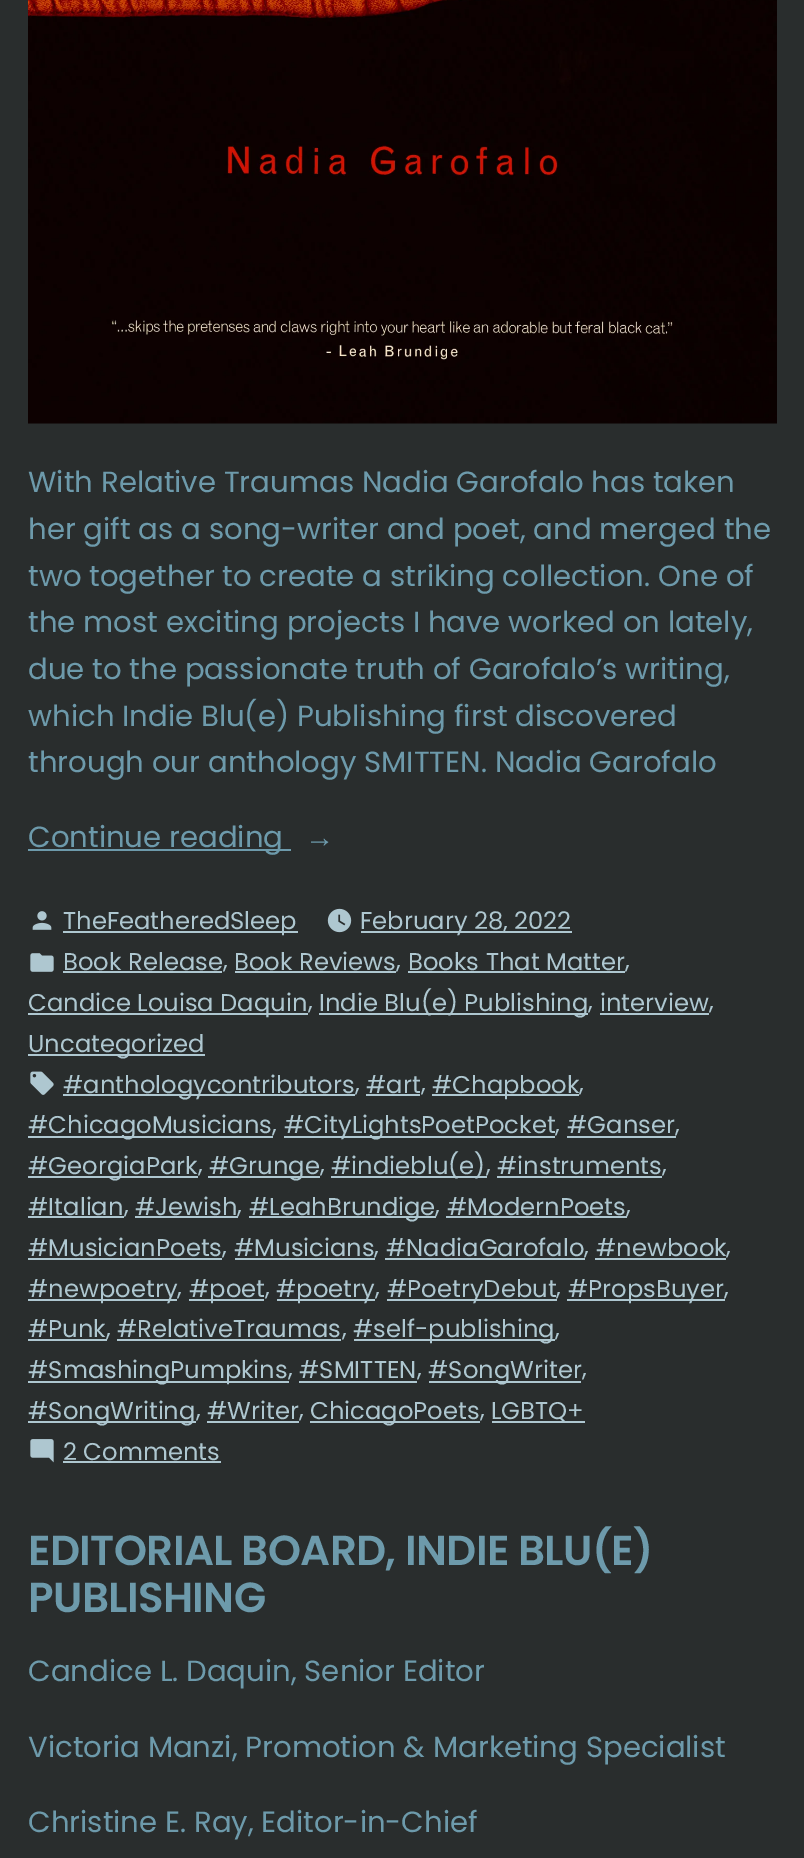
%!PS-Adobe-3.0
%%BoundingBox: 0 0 804 1858
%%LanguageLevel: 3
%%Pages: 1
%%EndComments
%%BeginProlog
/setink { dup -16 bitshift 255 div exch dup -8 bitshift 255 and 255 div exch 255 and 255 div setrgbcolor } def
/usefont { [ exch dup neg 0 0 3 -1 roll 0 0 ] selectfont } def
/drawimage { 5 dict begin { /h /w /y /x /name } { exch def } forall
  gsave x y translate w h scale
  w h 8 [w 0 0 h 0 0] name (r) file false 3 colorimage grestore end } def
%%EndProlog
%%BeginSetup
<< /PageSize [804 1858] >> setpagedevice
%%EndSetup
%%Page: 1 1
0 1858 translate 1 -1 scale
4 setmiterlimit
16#292D2D setink
0 0 804 1858 rectfill
(img1.raw) 28 0 749 424 drawimage
/Poppins-Regular 29.2 usefont
16#6D9AAB setink
[
    [(With Relative Traumas Nadia Garofalo has taken) 28 492]
    [(her gift as a song-writer and poet, and merged the) 28 539]
    [(two together to create a striking collection. One of) 28 586]
    [(the most exciting projects I have worked on lately,) 28 632]
    [(due to the passionate truth of Garofalo’s writing,) 28 679]
    [(which Indie Blu\(e\) Publishing first discovered) 28 726]
    [(through our anthology SMITTEN. Nadia Garofalo) 28 772]
] { aload pop moveto show } forall
28 849 263 2 rectfill
28 847 moveto (Continue reading) show
/LiberationSerif-Regular 29.2 usefont
305 847 moveto (→) show
(img2.raw) 32 911 20 19 drawimage
16#AEC7D0 setink
63 931 235 2 rectfill
/Poppins-Regular 24.25 usefont
63 929 moveto (TheFeatheredSleep) show
(img3.raw) 327 908 25 25 drawimage
361 931 211 2 rectfill
360 929 moveto (February 28, 2022) show
(img4.raw) 30 953 24 19 drawimage
63 970 moveto (Book Release) show
63 971 159 2 rectfill
223 968 moveto (,) show
234 970 moveto (Book Reviews) show
235 971 161 2 rectfill
396 968 moveto (,) show
408 970 moveto (Books That Matter) show
408 971 217 2 rectfill
625 968 moveto (,) show
28 1013 280 2 rectfill
28 1011 moveto (Candice Louisa Daquin) show
308 1009 moveto (,) show
319 1013 269 2 rectfill
[
    [(Indie Blu\(e\) Publishing) 319 1011]
    [(,) 588 1009]
    [(interview) 600 1011]
] { aload pop moveto show } forall
600 1013 109 2 rectfill
709 1009 moveto (,) show
28 1054 177 2 rectfill
28 1052 moveto (Uncategorized) show
(img5.raw) 30 1071 24 24 drawimage
63 1094 292 2 rectfill
[
    [(#anthologycontributors) 63 1093]
    [(,) 355 1091]
    [(#art) 366 1093]
] { aload pop moveto show } forall
366 1094 54 2 rectfill
421 1091 moveto (,) show
432 1094 147 2 rectfill
432 1093 moveto (#Chapbook) show
579 1091 moveto (,) show
28 1136 245 2 rectfill
28 1133 moveto (#ChicagoMusicians) show
272 1132 moveto (,) show
284 1136 271 2 rectfill
[
    [(#CityLightsPoetPocket) 284 1133]
    [(,) 555 1132]
    [(#Ganser) 567 1133]
] { aload pop moveto show } forall
567 1136 109 2 rectfill
675 1132 moveto (,) show
28 1176 170 2 rectfill
28 1174 moveto (#GeorgiaPark) show
198 1172 moveto (,) show
208 1176 112 2 rectfill
209 1174 moveto (#Grunge) show
320 1172 moveto (,) show
331 1176 156 2 rectfill
[
    [(#indieblu\(e\)) 331 1174]
    [(,) 486 1172]
    [(#instruments) 497 1174]
] { aload pop moveto show } forall
497 1176 165 2 rectfill
662 1172 moveto (,) show
28 1215 moveto (#Italian) show
28 1216 96 2 rectfill
124 1213 moveto (,) show
135 1215 moveto (#Jewish) show
135 1216 103 2 rectfill
237 1213 moveto (,) show
249 1216 187 2 rectfill
[
    [(#LeahBrundige) 249 1215]
    [(,) 435 1213]
    [(#ModernPoets) 447 1215]
] { aload pop moveto show } forall
446 1216 181 2 rectfill
626 1213 moveto (,) show
28 1256 moveto (#MusicianPoets) show
28 1258 194 2 rectfill
222 1254 moveto (,) show
234 1256 moveto (#Musicians) show
235 1258 140 2 rectfill
374 1254 moveto (,) show
386 1256 moveto (#NadiaGarofalo) show
385 1258 200 2 rectfill
584 1254 moveto (,) show
596 1256 moveto (#newbook) show
595 1258 131 2 rectfill
726 1254 moveto (,) show
28 1299 149 2 rectfill
28 1297 moveto (#newpoetry) show
177 1295 moveto (,) show
189 1299 75 2 rectfill
189 1297 moveto (#poet) show
265 1295 moveto (,) show
277 1299 98 2 rectfill
276 1297 moveto (#poetry) show
375 1295 moveto (,) show
387 1299 170 2 rectfill
387 1297 moveto (#PoetryDebut) show
556 1295 moveto (,) show
567 1299 158 2 rectfill
[
    [(#PropsBuyer) 568 1297]
    [(,) 724 1295]
    [(#Punk) 28 1337]
] { aload pop moveto show } forall
28 1339 79 2 rectfill
106 1336 moveto (,) show
117 1337 moveto (#RelativeTraumas) show
117 1339 224 2 rectfill
342 1336 moveto (,) show
354 1339 201 2 rectfill
353 1337 moveto (#self-publishing) show
555 1336 moveto (,) show
28 1381 261 2 rectfill
[
    [(#SmashingPumpkins) 28 1378]
    [(,) 288 1376]
    [(#SMITTEN) 299 1378]
] { aload pop moveto show } forall
299 1381 118 2 rectfill
417 1376 moveto (,) show
429 1381 152 2 rectfill
428 1378 moveto (#SongWriter) show
582 1376 moveto (,) show
28 1421 168 2 rectfill
[
    [(#SongWriting) 28 1419]
    [(,) 196 1417]
    [(#Writer) 207 1419]
] { aload pop moveto show } forall
207 1421 92 2 rectfill
299 1417 moveto (,) show
310 1421 170 2 rectfill
310 1419 moveto (ChicagoPoets) show
480 1417 moveto (,) show
492 1421 93 2 rectfill
491 1419 moveto (LGBTQ+) show
(img6.raw) 30 1439 24 24 drawimage
63 1460 moveto (2 Comments) show
63 1461 158 2 rectfill
/Poppins-SemiBold 42 usefont
16#6D9AAB setink
28 1565 moveto -0.6 0 (EDITORIAL BOARD, INDIE BLU\(E\)) ashow
28 1612 moveto -0.6 0 (PUBLISHING) ashow
/Poppins-Regular 29.2 usefont
[
    [(Candice L. Daquin, Senior Editor) 28 1681]
    [(Victoria Manzi, Promotion & Marketing Specialist) 28 1757]
    [(Christine E. Ray, Editor-in-Chief) 28 1832]
] { aload pop moveto show } forall
showpage
%%EOF
